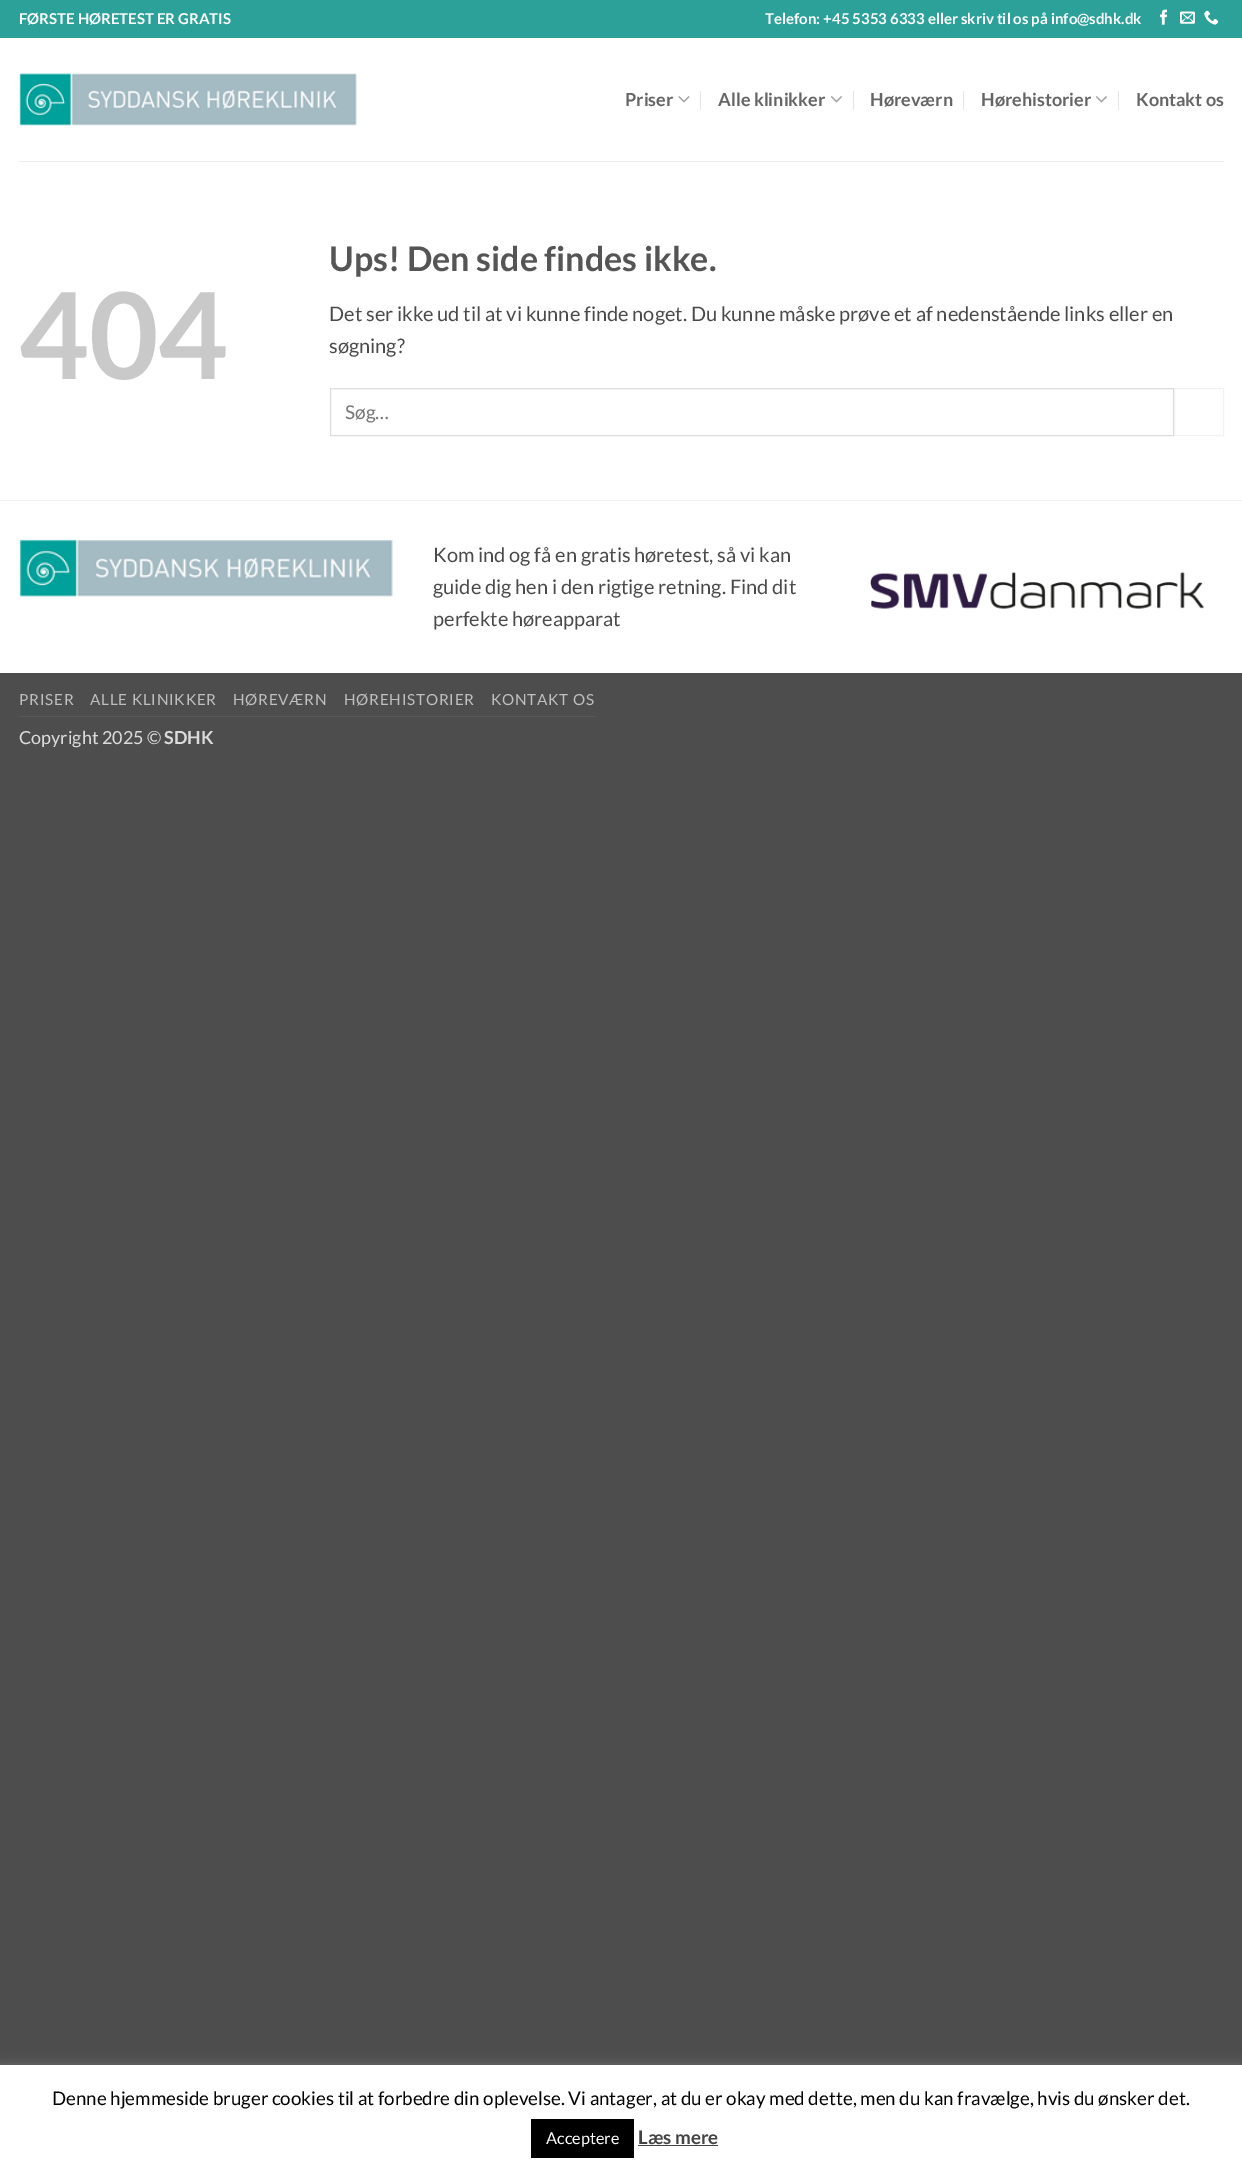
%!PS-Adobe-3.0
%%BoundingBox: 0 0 1242 2172
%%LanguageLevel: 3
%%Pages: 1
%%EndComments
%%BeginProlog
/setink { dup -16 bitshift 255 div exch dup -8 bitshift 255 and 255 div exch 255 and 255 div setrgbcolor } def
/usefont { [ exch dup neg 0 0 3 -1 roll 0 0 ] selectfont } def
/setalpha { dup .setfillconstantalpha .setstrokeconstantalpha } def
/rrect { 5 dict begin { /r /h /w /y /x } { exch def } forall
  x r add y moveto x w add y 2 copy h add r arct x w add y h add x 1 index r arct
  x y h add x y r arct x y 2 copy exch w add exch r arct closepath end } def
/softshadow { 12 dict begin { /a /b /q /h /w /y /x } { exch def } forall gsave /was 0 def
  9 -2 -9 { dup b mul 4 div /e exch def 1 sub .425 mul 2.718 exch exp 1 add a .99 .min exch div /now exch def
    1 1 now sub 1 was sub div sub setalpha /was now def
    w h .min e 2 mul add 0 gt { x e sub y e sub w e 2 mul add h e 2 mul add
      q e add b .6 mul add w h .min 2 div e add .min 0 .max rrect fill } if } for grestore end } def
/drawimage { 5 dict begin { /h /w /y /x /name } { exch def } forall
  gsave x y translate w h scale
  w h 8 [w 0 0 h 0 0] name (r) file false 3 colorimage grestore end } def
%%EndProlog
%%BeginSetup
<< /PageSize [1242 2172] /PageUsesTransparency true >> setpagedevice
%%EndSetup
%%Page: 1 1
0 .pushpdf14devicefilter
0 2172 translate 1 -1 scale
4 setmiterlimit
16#4D4D4D setink
0 0 1242 2172 rectfill
16#FFFFFF setink
0 38 1242 635 rectfill
16#2BA19A setink
0 0 1242 38 rectfill
/Lato-Bold 15 usefont
16#FFFFFF setink
19 24 moveto (FØRSTE HØRETEST ER GRATIS) show
765 24 moveto (Telefon: +45 5353 6333 eller skriv til os på info@sdhk.dk) show
(img1.raw) 1160 9 7 16 drawimage
(img2.raw) 1180 11 15 13 drawimage
(img3.raw) 1204 10 15 15 drawimage
(img4.raw) 19 73 338 53 drawimage
/Lato-Bold 18 usefont
16#656565 setink
625 106 moveto (Priser) show
(img5.raw) 678 96 12 7 drawimage
16#E6E6E6 setink
700 91 1 19 rectfill
16#656565 setink
718 106 moveto (Alle klinikker) show
(img6.raw) 831 96 11 7 drawimage
16#E6E6E6 setink
853 91 1 19 rectfill
16#656565 setink
870 106 moveto (Høreværn) show
16#E6E6E6 setink
963 91 1 19 rectfill
16#656565 setink
981 106 moveto (Hørehistorier) show
(img6.raw) 1096 96 11 7 drawimage
16#E6E6E6 setink
1118 91 1 19 rectfill
16#656565 setink
1136 106 moveto (Kontakt os) show
16#EDEDED setink
19 161 1205 1 rectfill
/Lato-Bold 120 usefont
16#C9C9C9 setink
19 379 moveto (404) show
/Lato-Bold 34 usefont
16#555555 setink
329 271 moveto (Ups! Den side findes ikke.) show
/Lato-Regular 20 usefont
16#4A4A4A setink
329 321 moveto (Det ser ikke ud til at vi kunne finde noget. Du kunne måske prøve et af nedenstående links eller en) show
329 353 moveto (søgning?) show
16#DDDDDD setink
330.5 388.5 843 47 rectstroke
/Lato-Regular 19 usefont
16#757575 setink
345 419 moveto (Søg…) show
16#F2F2F2 setink
1174.5 388.5 49 47 rectstroke
0 500 1242 1 rectfill
(img7.raw) 19 539 374 58 drawimage
/Lato-Regular 20 usefont
16#4A4A4A setink
[
    [(Kom ind og få en gratis høretest, så vi kan) 433 562]
    [(guide dig hen i den rigtige retning. Find dit) 433 594]
    [(perfekte høreapparat) 433 626]
] { aload pop moveto show } forall
(img8.raw) 870 571 334 38 drawimage
16#585858 setink
19 716 576 1 rectfill
/Lato-Regular 15.25 usefont
16#BFBFBF setink
19 705 moveto 0.75 0 (PRISER) ashow
90 705 moveto 0.75 0 (ALLE KLINIKKER) ashow
233 705 moveto 0.75 0 (HØREVÆRN) ashow
344 705 moveto 0.75 0 (HØREHISTORIER) ashow
491 705 moveto 0.75 0 (KONTAKT OS) ashow
/Lato-Regular 18 usefont
16#DBDBDB setink
19 744 moveto (Copyright 2025 ©) show
/Lato-Bold 18 usefont
164 744 moveto (SDHK) show
16#ACABAB setink
0 2064 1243 107 0 6 0.3 softshadow
16#FFFFFF setink
0 2065 1242 107 rectfill
/Lato-Regular 18.75 usefont
16#000000 setink
52 2105 moveto (Denne hjemmeside bruger cookies til at forbedre din oplevelse. Vi antager, at du er okay med dette, men du kan fravælge, hvis du ønsker det.) show
531 2119 103 39 rectfill
/Lato-Regular 16.25 usefont
16#FFFFFF setink
546 2144 moveto (Acceptere) show
/Lato-Bold 18.75 usefont
16#444444 setink
638 2144 moveto (Læs mere) show
638 2145 80 1 rectfill
.poppdf14devicefilter showpage
%%EOF
